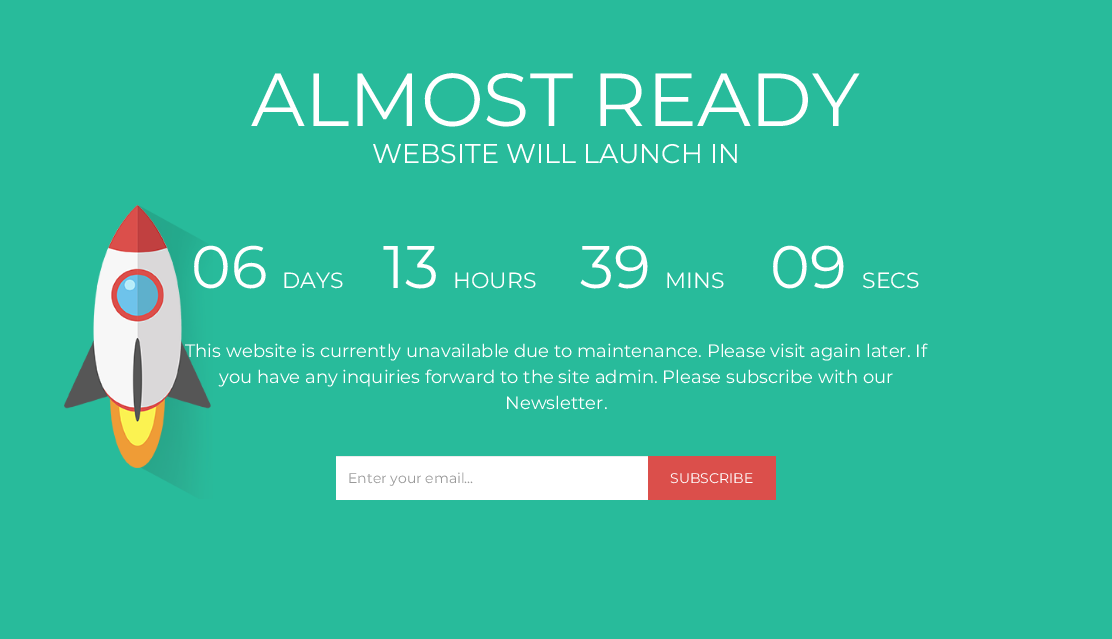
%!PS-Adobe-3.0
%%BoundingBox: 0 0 1112 639
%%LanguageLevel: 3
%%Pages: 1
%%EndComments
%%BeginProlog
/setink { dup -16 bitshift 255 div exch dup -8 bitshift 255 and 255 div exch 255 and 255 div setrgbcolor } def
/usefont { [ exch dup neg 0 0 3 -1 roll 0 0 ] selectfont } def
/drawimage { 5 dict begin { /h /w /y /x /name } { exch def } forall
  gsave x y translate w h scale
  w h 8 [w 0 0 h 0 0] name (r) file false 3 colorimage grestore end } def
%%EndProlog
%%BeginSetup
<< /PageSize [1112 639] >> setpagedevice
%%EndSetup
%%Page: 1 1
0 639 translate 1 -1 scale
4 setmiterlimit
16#28BB9B setink
0 0 1112 639 rectfill
(img1.raw) 64 205 149 294 drawimage
/Montserrat-Regular 75 usefont
16#FFFFFF setink
251 126 moveto (ALMOST READY) show
/Montserrat-Regular 27 usefont
372 163 moveto (WEBSITE WILL LAUNCH IN) show
/Montserrat-Regular 60 usefont
191 288 moveto (06) show
/Montserrat-Regular 22 usefont
282 288 moveto (DAYS) show
/Montserrat-Regular 60 usefont
383 288 moveto (13) show
/Montserrat-Regular 22 usefont
453 288 moveto (HOURS) show
/Montserrat-Regular 60 usefont
580 288 moveto (39) show
/Montserrat-Regular 22 usefont
665 288 moveto (MINS) show
/Montserrat-Regular 60 usefont
770 288 moveto (09) show
/Montserrat-Regular 22 usefont
862 288 moveto (SECS) show
/Montserrat-Regular 18 usefont
[
    [(This website is currently unavailable due to maintenance. Please visit again later. If) 185 357]
    [(you have any inquiries forward to the site admin. Please subscribe with our) 219 383]
    [(Newsletter.) 505 409]
] { aload pop moveto show } forall
336 457 312 43 rectfill
16#ECECEC setink
336 456 312 1 rectfill
/Montserrat-Regular 14 usefont
16#999999 setink
348 483 moveto (Enter your email...) show
16#DB4F4B setink
648 456 128 44 rectfill
16#FFFFFF setink
670 483 moveto (SUBSCRIBE) show
showpage
%%EOF
